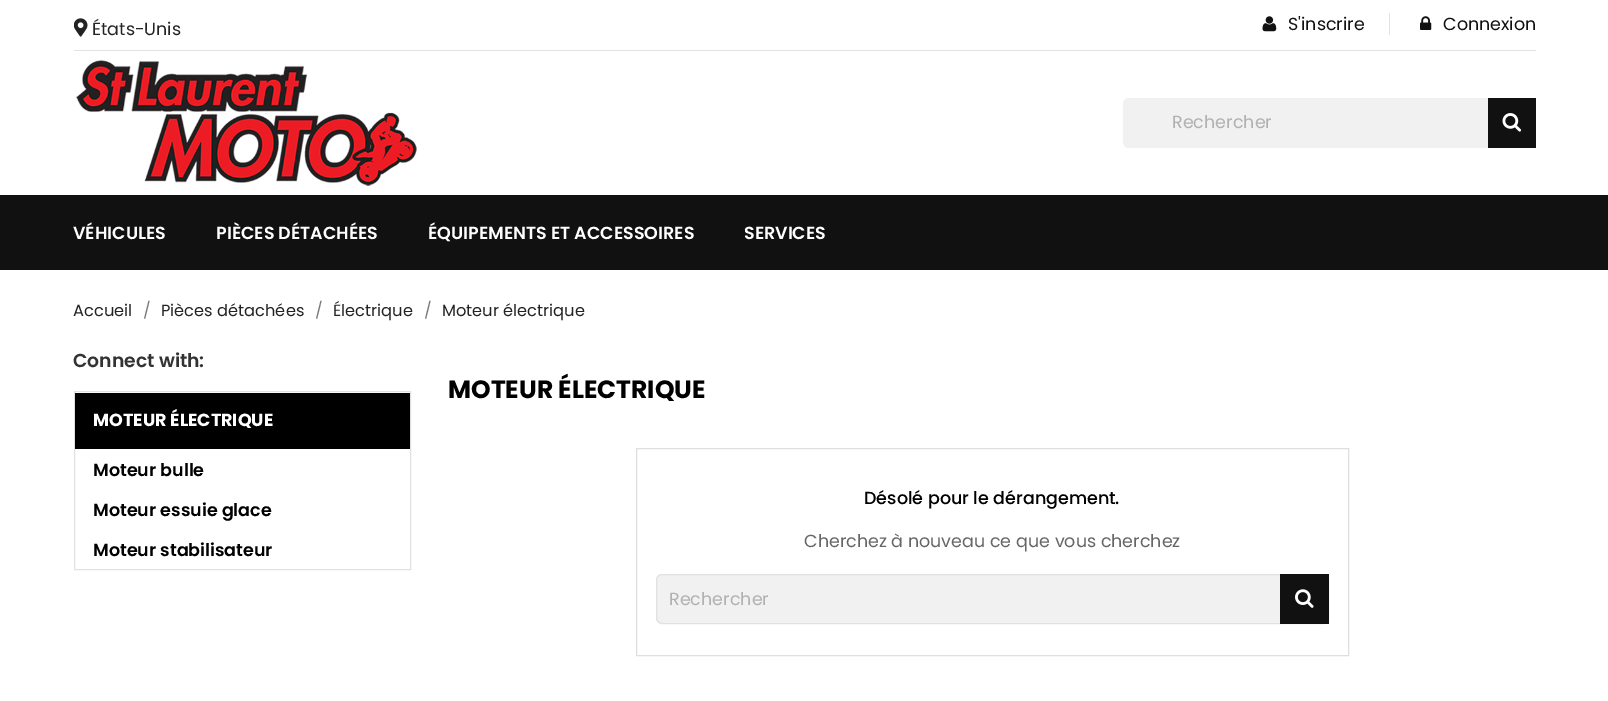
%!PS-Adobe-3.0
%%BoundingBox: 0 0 1608 701
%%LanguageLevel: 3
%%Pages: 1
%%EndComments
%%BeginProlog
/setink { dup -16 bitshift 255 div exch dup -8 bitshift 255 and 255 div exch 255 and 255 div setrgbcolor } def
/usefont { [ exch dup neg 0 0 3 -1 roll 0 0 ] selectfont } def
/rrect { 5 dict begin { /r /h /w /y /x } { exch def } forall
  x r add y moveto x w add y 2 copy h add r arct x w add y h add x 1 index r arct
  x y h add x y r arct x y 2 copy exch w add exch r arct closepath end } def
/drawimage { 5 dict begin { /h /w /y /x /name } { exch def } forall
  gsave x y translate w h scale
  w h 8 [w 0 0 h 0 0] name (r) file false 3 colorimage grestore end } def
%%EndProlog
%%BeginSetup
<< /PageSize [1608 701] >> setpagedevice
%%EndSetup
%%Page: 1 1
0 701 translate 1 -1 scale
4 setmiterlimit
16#FFFFFF setink
0 0 1608 701 rectfill
16#E1E1E1 setink
74 50 1462 1 rectfill
(img1.raw) 74 18 14 19 drawimage
/Poppins-Regular 17.5 usefont
16#232323 setink
92 35 moveto (États-Unis) show
(img2.raw) 1262 16 15 16 drawimage
16#111111 setink
1288 30 moveto (S'inscrire) show
16#E1E1E1 setink
1389 13 1 22 rectfill
(img3.raw) 1420 16 12 14 drawimage
16#111111 setink
1443 30 moveto (Connexion) show
(img4.raw) 75 60 342 126 drawimage
16#F1F1F1 setink
1123 98 413 50 6 rrect fill
16#B1B1B1 setink
1172 128 moveto (Rechercher) show
16#111111 setink
1488 98 48 50 rectfill
(img5.raw) 1502 113 20 19 drawimage
0 195 1608 75 rectfill
/Poppins-SemiBold 17.5 usefont
16#FFFFFF setink
[
    [(VÉHICULES) 73 239]
    [(PIÈCES DÉTACHÉES) 216 239]
    [(ÉQUIPEMENTS ET ACCESSOIRES) 428 239]
    [(SERVICES) 744 239]
] { aload pop moveto show } forall
/Poppins-Regular 16.25 usefont
16#232323 setink
73 316 moveto (Accueil) show
16#7A7A7A setink
143 316 moveto (/) show
16#232323 setink
161 316 moveto (Pièces détachées) show
16#7A7A7A setink
315 316 moveto (/) show
16#232323 setink
333 316 moveto (Électrique) show
16#7A7A7A setink
424 316 moveto (/) show
16#232323 setink
442 316 moveto (Moteur électrique) show
/Poppins-SemiBold 18.75 usefont
16#333333 setink
73 367 moveto (Connect with:) show
16#E1E1E1 setink
74.5 391.5 336 178 rectstroke
16#000000 setink
75 393 335 56 rectfill
/Poppins-Bold 17.5 usefont
16#FFFFFF setink
93 426 moveto (MOTEUR ÉLECTRIQUE) show
/Poppins-SemiBold 17.5 usefont
16#000000 setink
[
    [(Moteur bulle) 93 476]
    [(Moteur essuie glace) 93 516]
    [(Moteur stabilisateur) 93 556]
] { aload pop moveto show } forall
/Poppins-Bold 25 usefont
448 398 moveto (MOTEUR ÉLECTRIQUE) show
16#DFDFDF setink
636.5 448.5 712 207 rectstroke
/Poppins-Medium 17.5 usefont
16#000000 setink
864 504 moveto (Désolé pour le dérangement.) show
/Poppins-Regular 17.5 usefont
16#666666 setink
804 547 moveto (Cherchez à nouveau ce que vous cherchez) show
16#F1F1F1 setink
656.5 574.5 672 49 5.5 rrect gsave fill grestore
16#E1E1E1 setink
stroke
16#B1B1B1 setink
669 605 moveto (Rechercher) show
16#111111 setink
1280 574 49 50 rectfill
(img6.raw) 1295 589 19 19 drawimage
showpage
%%EOF
